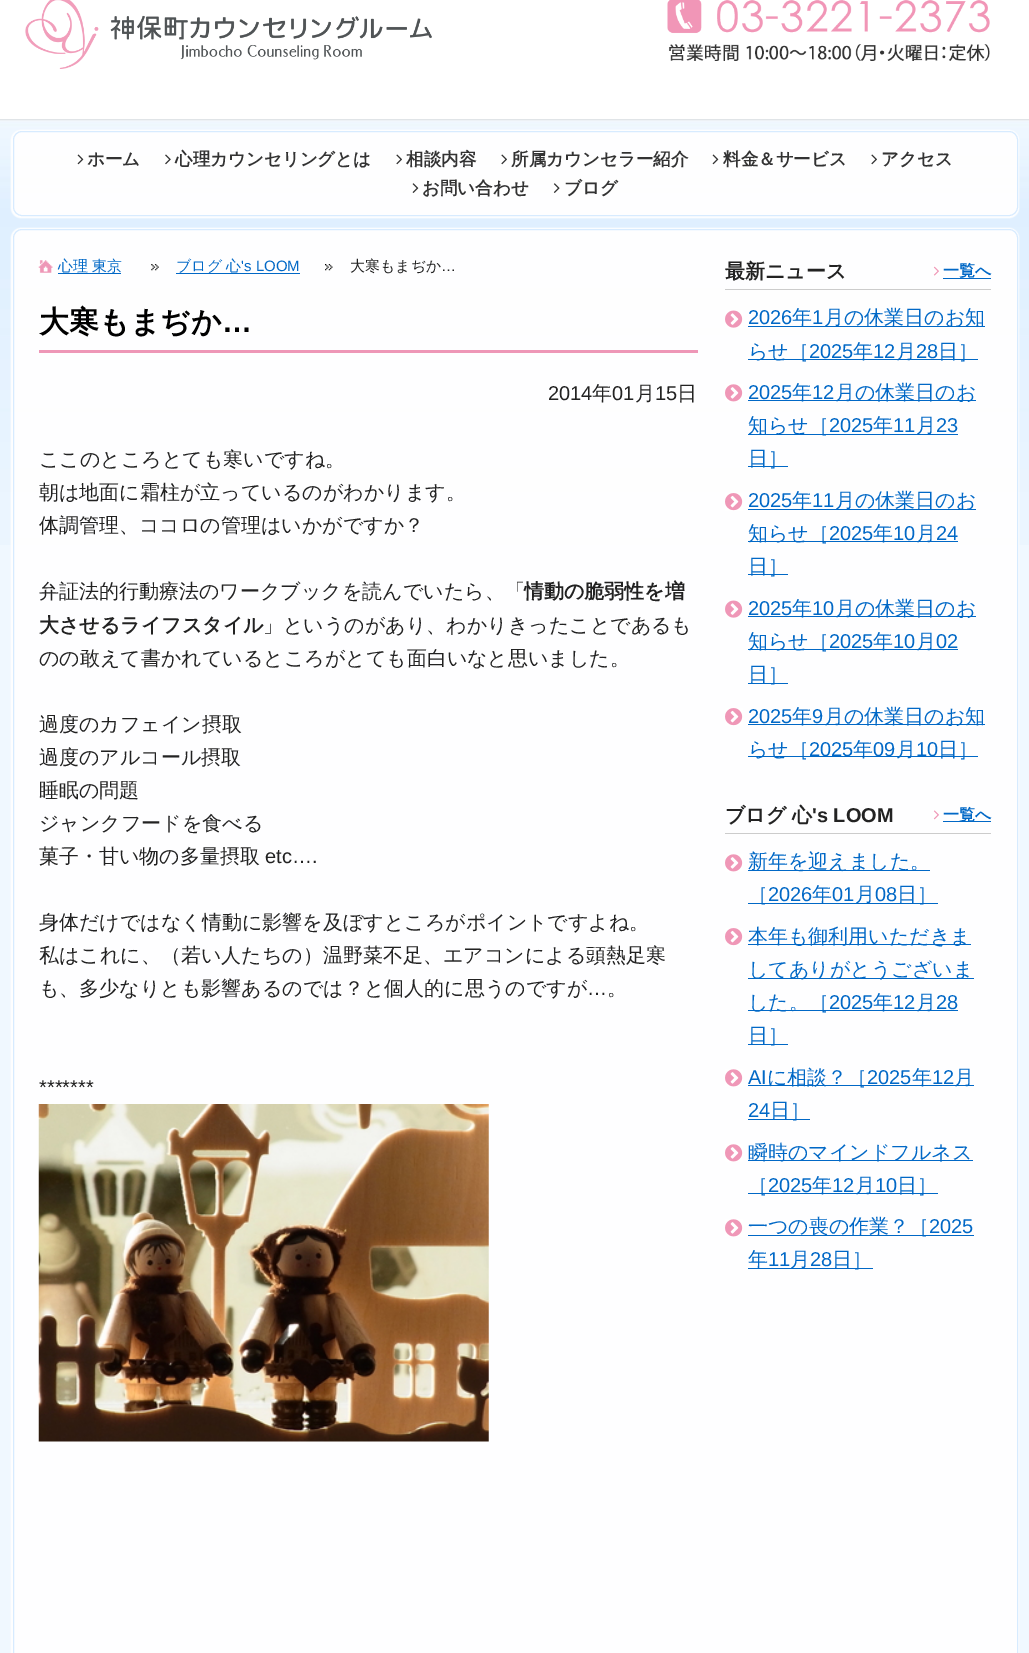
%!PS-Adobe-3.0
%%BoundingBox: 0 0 1029 1653
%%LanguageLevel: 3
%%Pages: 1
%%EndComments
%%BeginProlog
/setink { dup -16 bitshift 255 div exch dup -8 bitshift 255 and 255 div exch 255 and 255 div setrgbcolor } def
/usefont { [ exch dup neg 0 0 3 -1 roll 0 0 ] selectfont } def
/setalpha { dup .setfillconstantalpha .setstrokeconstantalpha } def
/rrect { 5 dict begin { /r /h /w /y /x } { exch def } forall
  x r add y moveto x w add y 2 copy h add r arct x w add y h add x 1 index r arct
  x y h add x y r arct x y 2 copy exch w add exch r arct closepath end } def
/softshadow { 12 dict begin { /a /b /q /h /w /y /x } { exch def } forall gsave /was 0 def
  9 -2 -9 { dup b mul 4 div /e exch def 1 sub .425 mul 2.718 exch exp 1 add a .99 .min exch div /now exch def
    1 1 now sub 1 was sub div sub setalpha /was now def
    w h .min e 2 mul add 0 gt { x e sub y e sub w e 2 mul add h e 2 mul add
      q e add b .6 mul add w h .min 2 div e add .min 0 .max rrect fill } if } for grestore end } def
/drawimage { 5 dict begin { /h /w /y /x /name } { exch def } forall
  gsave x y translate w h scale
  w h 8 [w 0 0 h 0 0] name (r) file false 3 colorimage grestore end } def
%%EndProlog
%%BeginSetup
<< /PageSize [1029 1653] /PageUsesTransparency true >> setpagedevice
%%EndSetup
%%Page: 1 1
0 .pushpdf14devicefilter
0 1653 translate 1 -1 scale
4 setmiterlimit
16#F0F8FF setink
0 0 1029 1653 rectfill
(img1.raw) 0 119 1029 426 drawimage
16#FFFFFF setink
0 0 1029 119 rectfill
(img2.raw) 25 0 407 69 drawimage
(img3.raw) 667 0 323 61 drawimage
11 130 1008 88 10 0.5 1 softshadow
16#D7EBFF setink
13.5 131.5 1004 84 8.5 rrect stroke
(img4.raw) 77 154 7 11 drawimage
/WenQuanYiZenHei-Bold 17.5 usefont
16#333333 setink
87 165 moveto (ホーム) show
(img5.raw) 165 154 6 11 drawimage
175 165 moveto (心理カウンセリングとは) show
(img6.raw) 396 154 6 11 drawimage
406 165 moveto (相談内容) show
(img6.raw) 501 154 6 11 drawimage
511 165 moveto (所属カウンセラー紹介) show
(img4.raw) 712 154 7 11 drawimage
723 165 moveto (料金＆サービス) show
(img6.raw) 871 154 6 11 drawimage
881 165 moveto (アクセス) show
(img7.raw) 412 183 7 10 drawimage
422 194 moveto (お問い合わせ) show
(img8.raw) 553 183 7 10 drawimage
564 194 moveto (ブログ) show
16#FFFFFF setink
11 228 1008 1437 10 0.5 1 softshadow
16#D7EBFF setink
13.5 229.5 1004 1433 8.5 rrect stroke
(img9.raw) 38 260 15 13 drawimage
/WenQuanYiZenHei-Medium 15 usefont
16#0168C6 setink
58 271 moveto (心理 東京) show
58 273 63 1 rectfill
(img10.raw) 151 264 8 7 drawimage
176 271 moveto (ブログ) show
226 271 moveto (心) show
/LiberationSans-Regular 15 usefont
241 271 moveto ('s LOOM) show
176 273 124 1 rectfill
(img11.raw) 325 264 8 7 drawimage
/WenQuanYiZenHei-Medium 15 usefont
16#222222 setink
350 271 moveto (大寒もまぢか) show
/LiberationSans-Regular 15 usefont
441 271 moveto (…) show
16#EE97B7 setink
39 350 659 3 rectfill
/WenQuanYiZenHei-Bold 30 usefont
16#000000 setink
39 332 moveto (大寒もまぢか) show
/LiberationSans-Bold 30 usefont
222 332 moveto (…) show
/LiberationSans-Regular 20 usefont
16#222222 setink
548 400 moveto (2014) show
/WenQuanYiZenHei-Medium 20 usefont
592 400 moveto (年) show
/LiberationSans-Regular 20 usefont
612 400 moveto (01) show
/WenQuanYiZenHei-Medium 20 usefont
635 400 moveto (月) show
/LiberationSans-Regular 20 usefont
655 400 moveto (15) show
/WenQuanYiZenHei-Medium 20 usefont
[
    [(日) 677 400]
    [(ここのところとても寒いですね。) 39 466]
    [(朝は地面に霜柱が立っているのがわかります。) 39 499]
    [(体調管理、ココロの管理はいかがですか？) 39 532]
    [(弁証法的行動療法のワークブックを読んでいたら、「) 39 598]
] { aload pop moveto show } forall
/WenQuanYiZenHei-Bold 20 usefont
524 598 moveto (情動の脆弱性を増) show
39 632 moveto (大させるライフスタイル) show
/WenQuanYiZenHei-Medium 20 usefont
[
    [(」というのがあり、わかりきったことであるも) 263 632]
    [(のの敢えて書かれているところがとても面白いなと思いました。) 39 665]
    [(過度のカフェイン摂取) 39 731]
    [(過度のアルコール摂取) 39 764]
    [(睡眠の問題) 39 797]
    [(ジャンクフードを食べる) 39 830]
    [(菓子・甘い物の多量摂取) 39 863]
] { aload pop moveto show } forall
/LiberationSans-Regular 20 usefont
265 863 moveto (etc….) show
/WenQuanYiZenHei-Medium 20 usefont
[
    [(身体だけではなく情動に影響を及ぼすところがポイントですよね。) 39 929]
    [(私はこれに、（若い人たちの）温野菜不足、エアコンによる頭熱足寒) 39 962]
    [(も、多少なりとも影響あるのでは？と個人的に思うのですが) 39 995]
] { aload pop moveto show } forall
/LiberationSans-Regular 20 usefont
587 995 moveto (…) show
/WenQuanYiZenHei-Medium 20 usefont
607 995 moveto (。) show
/LiberationSans-Regular 20 usefont
39 1094 moveto (*******) show
(img12.raw) 38 1104 451 338 drawimage
16#CCCCCC setink
725 289 266 1 rectfill
/WenQuanYiZenHei-Bold 20 usefont
16#222222 setink
725 278 moveto (最新ニュース) show
(img13.raw) 933 266 6 10 drawimage
/WenQuanYiZenHei-Bold 16 usefont
16#0168C6 setink
943 276 moveto (一覧へ) show
943 278 48 1 rectfill
(img14.raw) 725 310 18 18 drawimage
/LiberationSans-Regular 20 usefont
748 324 moveto (2026) show
748 326 237 1 rectfill
/WenQuanYiZenHei-Medium 20 usefont
792 324 moveto (年) show
/LiberationSans-Regular 20 usefont
812 324 moveto (1) show
/WenQuanYiZenHei-Medium 20 usefont
824 324 moveto (月の休業日のお知) show
748 359 230 1 rectfill
748 358 moveto (らせ［) show
/LiberationSans-Regular 20 usefont
809 358 moveto (2025) show
/WenQuanYiZenHei-Medium 20 usefont
853 358 moveto (年) show
/LiberationSans-Regular 20 usefont
873 358 moveto (12) show
/WenQuanYiZenHei-Medium 20 usefont
896 358 moveto (月) show
/LiberationSans-Regular 20 usefont
916 358 moveto (28) show
/WenQuanYiZenHei-Medium 20 usefont
938 358 moveto (日］) show
(img15.raw) 725 384 18 18 drawimage
/LiberationSans-Regular 20 usefont
748 399 moveto (2025) show
748 400 228 1 rectfill
/WenQuanYiZenHei-Medium 20 usefont
792 399 moveto (年) show
/LiberationSans-Regular 20 usefont
812 399 moveto (12) show
/WenQuanYiZenHei-Medium 20 usefont
835 399 moveto (月の休業日のお) show
748 434 210 1 rectfill
748 432 moveto (知らせ［) show
/LiberationSans-Regular 20 usefont
829 432 moveto (2025) show
/WenQuanYiZenHei-Medium 20 usefont
873 432 moveto (年) show
/LiberationSans-Regular 20 usefont
893 432 moveto (11) show
/WenQuanYiZenHei-Medium 20 usefont
916 432 moveto (月) show
/LiberationSans-Regular 20 usefont
936 432 moveto (23) show
748 466 40 1 rectfill
/WenQuanYiZenHei-Medium 20 usefont
748 465 moveto (日］) show
(img16.raw) 725 493 18 18 drawimage
/LiberationSans-Regular 20 usefont
748 507 moveto (2025) show
748 509 228 1 rectfill
/WenQuanYiZenHei-Medium 20 usefont
792 507 moveto (年) show
/LiberationSans-Regular 20 usefont
812 507 moveto (11) show
/WenQuanYiZenHei-Medium 20 usefont
835 507 moveto (月の休業日のお) show
748 541 210 1 rectfill
748 540 moveto (知らせ［) show
/LiberationSans-Regular 20 usefont
829 540 moveto (2025) show
/WenQuanYiZenHei-Medium 20 usefont
873 540 moveto (年) show
/LiberationSans-Regular 20 usefont
893 540 moveto (10) show
/WenQuanYiZenHei-Medium 20 usefont
916 540 moveto (月) show
/LiberationSans-Regular 20 usefont
936 540 moveto (24) show
748 574 40 1 rectfill
/WenQuanYiZenHei-Medium 20 usefont
748 573 moveto (日］) show
(img14.raw) 725 600 18 18 drawimage
/LiberationSans-Regular 20 usefont
748 615 moveto (2025) show
748 616 228 1 rectfill
/WenQuanYiZenHei-Medium 20 usefont
792 615 moveto (年) show
/LiberationSans-Regular 20 usefont
812 615 moveto (10) show
/WenQuanYiZenHei-Medium 20 usefont
835 615 moveto (月の休業日のお) show
748 649 210 1 rectfill
748 648 moveto (知らせ［) show
/LiberationSans-Regular 20 usefont
829 648 moveto (2025) show
/WenQuanYiZenHei-Medium 20 usefont
873 648 moveto (年) show
/LiberationSans-Regular 20 usefont
893 648 moveto (10) show
/WenQuanYiZenHei-Medium 20 usefont
916 648 moveto (月) show
/LiberationSans-Regular 20 usefont
936 648 moveto (02) show
748 683 40 1 rectfill
/WenQuanYiZenHei-Medium 20 usefont
748 681 moveto (日］) show
(img16.raw) 725 708 18 18 drawimage
/LiberationSans-Regular 20 usefont
748 723 moveto (2025) show
748 724 237 1 rectfill
/WenQuanYiZenHei-Medium 20 usefont
792 723 moveto (年) show
/LiberationSans-Regular 20 usefont
812 723 moveto (9) show
/WenQuanYiZenHei-Medium 20 usefont
824 723 moveto (月の休業日のお知) show
748 756 230 1 rectfill
748 756 moveto (らせ［) show
/LiberationSans-Regular 20 usefont
809 756 moveto (2025) show
/WenQuanYiZenHei-Medium 20 usefont
853 756 moveto (年) show
/LiberationSans-Regular 20 usefont
873 756 moveto (09) show
/WenQuanYiZenHei-Medium 20 usefont
896 756 moveto (月) show
/LiberationSans-Regular 20 usefont
916 756 moveto (10) show
/WenQuanYiZenHei-Medium 20 usefont
938 756 moveto (日］) show
16#CCCCCC setink
725 833 266 1 rectfill
/WenQuanYiZenHei-Bold 20 usefont
16#222222 setink
725 822 moveto (ブログ) show
792 822 moveto (心) show
/LiberationSans-Bold 20 usefont
812 822 moveto ('s LOOM) show
(img17.raw) 933 810 6 10 drawimage
16#0168C6 setink
943 821 48 1 rectfill
/WenQuanYiZenHei-Bold 16 usefont
943 820 moveto (一覧へ) show
(img15.raw) 725 854 18 18 drawimage
748 870 182 1 rectfill
/WenQuanYiZenHei-Medium 20 usefont
748 868 moveto (新年を迎えました。) show
748 903 190 1 rectfill
748 901 moveto (［) show
/LiberationSans-Regular 20 usefont
768 901 moveto (2026) show
/WenQuanYiZenHei-Medium 20 usefont
812 901 moveto (年) show
/LiberationSans-Regular 20 usefont
832 901 moveto (01) show
/WenQuanYiZenHei-Medium 20 usefont
855 901 moveto (月) show
/LiberationSans-Regular 20 usefont
875 901 moveto (08) show
/WenQuanYiZenHei-Medium 20 usefont
897 901 moveto (日］) show
(img16.raw) 725 928 18 18 drawimage
748 944 223 1 rectfill
748 943 moveto (本年も御利用いただきま) show
748 978 226 1 rectfill
748 976 moveto (してありがとうございま) show
748 1010 210 1 rectfill
748 1009 moveto (した。［) show
/LiberationSans-Regular 20 usefont
829 1009 moveto (2025) show
/WenQuanYiZenHei-Medium 20 usefont
873 1009 moveto (年) show
/LiberationSans-Regular 20 usefont
893 1009 moveto (12) show
/WenQuanYiZenHei-Medium 20 usefont
916 1009 moveto (月) show
/LiberationSans-Regular 20 usefont
936 1009 moveto (28) show
748 1044 40 1 rectfill
/WenQuanYiZenHei-Medium 20 usefont
748 1042 moveto (日］) show
(img15.raw) 725 1069 18 18 drawimage
/LiberationSans-Regular 20 usefont
748 1084 moveto (AI) show
748 1085 226 1 rectfill
/WenQuanYiZenHei-Medium 20 usefont
767 1084 moveto (に相談？［) show
/LiberationSans-Regular 20 usefont
867 1084 moveto (2025) show
/WenQuanYiZenHei-Medium 20 usefont
912 1084 moveto (年) show
/LiberationSans-Regular 20 usefont
932 1084 moveto (12) show
/WenQuanYiZenHei-Medium 20 usefont
954 1084 moveto (月) show
/LiberationSans-Regular 20 usefont
748 1117 moveto (24) show
748 1119 62 1 rectfill
/WenQuanYiZenHei-Medium 20 usefont
770 1117 moveto (日］) show
(img15.raw) 725 1144 18 18 drawimage
748 1160 225 1 rectfill
748 1159 moveto (瞬時のマインドフルネス) show
748 1193 190 1 rectfill
748 1192 moveto (［) show
/LiberationSans-Regular 20 usefont
768 1192 moveto (2025) show
/WenQuanYiZenHei-Medium 20 usefont
812 1192 moveto (年) show
/LiberationSans-Regular 20 usefont
832 1192 moveto (12) show
/WenQuanYiZenHei-Medium 20 usefont
855 1192 moveto (月) show
/LiberationSans-Regular 20 usefont
875 1192 moveto (10) show
/WenQuanYiZenHei-Medium 20 usefont
897 1192 moveto (日］) show
(img15.raw) 725 1219 18 18 drawimage
748 1235 226 1 rectfill
748 1233 moveto (一つの喪の作業？［) show
/LiberationSans-Regular 20 usefont
929 1233 moveto (2025) show
748 1268 125 1 rectfill
/WenQuanYiZenHei-Medium 20 usefont
748 1266 moveto (年) show
/LiberationSans-Regular 20 usefont
768 1266 moveto (11) show
/WenQuanYiZenHei-Medium 20 usefont
790 1266 moveto (月) show
/LiberationSans-Regular 20 usefont
810 1266 moveto (28) show
/WenQuanYiZenHei-Medium 20 usefont
832 1266 moveto (日］) show
.poppdf14devicefilter showpage
%%EOF
